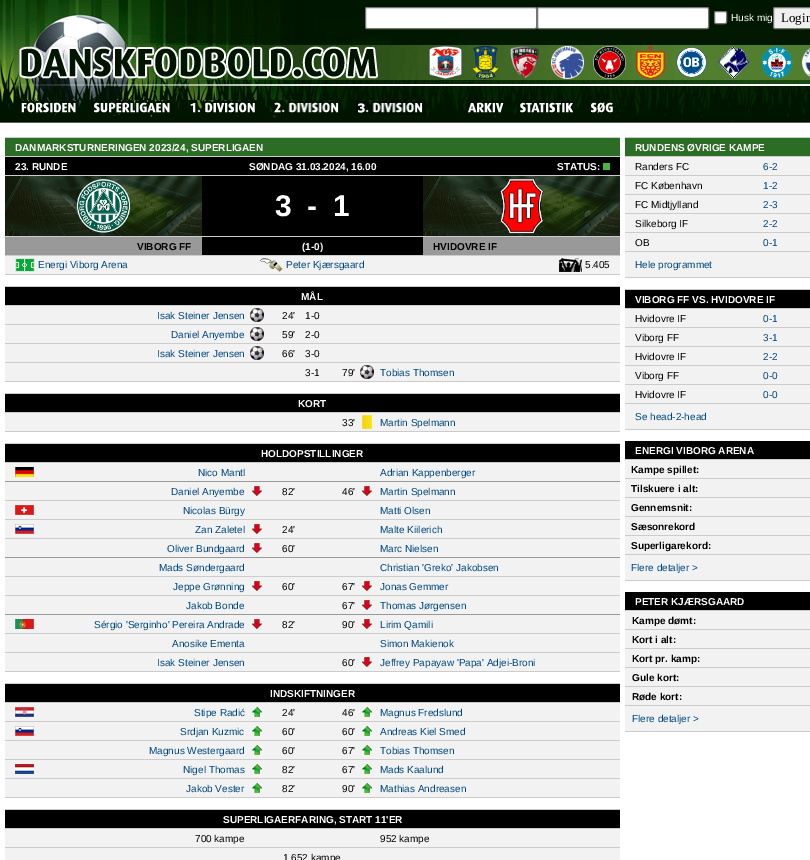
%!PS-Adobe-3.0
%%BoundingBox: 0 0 810 860
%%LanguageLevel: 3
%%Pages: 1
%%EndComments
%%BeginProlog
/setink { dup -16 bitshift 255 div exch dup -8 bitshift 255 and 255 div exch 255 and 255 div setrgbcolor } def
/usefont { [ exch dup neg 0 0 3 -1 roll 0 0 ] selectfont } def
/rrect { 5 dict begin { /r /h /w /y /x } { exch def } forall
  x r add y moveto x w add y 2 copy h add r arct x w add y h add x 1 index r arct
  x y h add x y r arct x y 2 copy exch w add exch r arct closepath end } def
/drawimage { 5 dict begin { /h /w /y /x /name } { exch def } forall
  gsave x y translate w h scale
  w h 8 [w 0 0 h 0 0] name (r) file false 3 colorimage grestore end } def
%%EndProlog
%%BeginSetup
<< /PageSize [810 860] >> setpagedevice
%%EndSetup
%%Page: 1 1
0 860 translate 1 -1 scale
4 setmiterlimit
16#FFFFFF setink
0 0 810 860 rectfill
(img1.raw) 0 0 810 35 drawimage
365.5 7.5 171 21 1.5 rrect gsave fill grestore
16#767676 setink
stroke
16#FFFFFF setink
537.5 7.5 171 21 1.5 rrect gsave fill grestore
16#767676 setink
stroke
16#FFFFFF setink
714.5 11.5 12 12 1.5 rrect gsave fill grestore
16#767676 setink
stroke
/LiberationSans-Regular 10 usefont
16#FFFFFF setink
731 21 moveto (Husk mig) show
16#EFEFEF setink
773.5 7.5 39 21 1.5 rrect gsave fill grestore
16#767676 setink
stroke
/LiberationSerif-Regular 13 usefont
16#000000 setink
781 22 moveto (Login) show
(img2.raw) 391 35 419 50 drawimage
(img3.raw) 0 35 391 50 drawimage
(img4.raw) 429 46 33 33 drawimage
(img5.raw) 472 46 27 33 drawimage
(img6.raw) 510 46 29 33 drawimage
(img7.raw) 551 46 33 33 drawimage
(img8.raw) 593 46 33 33 drawimage
(img9.raw) 636 46 29 33 drawimage
(img10.raw) 676 47 31 31 drawimage
(img11.raw) 717 46 33 33 drawimage
(img12.raw) 761 46 32 33 drawimage
(img13.raw) 802 47 8 31 drawimage
(img14.raw) 0 85 810 41 drawimage
(img15.raw) 21 100 57 15 drawimage
(img16.raw) 93 100 79 15 drawimage
(img17.raw) 188 100 69 15 drawimage
(img18.raw) 272 100 68 15 drawimage
(img19.raw) 356 100 69 15 drawimage
(img20.raw) 466 100 40 13 drawimage
(img21.raw) 520 100 55 15 drawimage
(img22.raw) 590 100 25 13 drawimage
16#CCCCCC setink
5 137 615 1 rectfill
16#2B6D24 setink
5 138 615 18 rectfill
/LiberationSans-Bold 10 usefont
16#FFFFFF setink
15 151 moveto (DANMARKSTURNERINGEN 2023/24, SUPERLIGAEN) show
16#CCCCCC setink
5 156 615 1 rectfill
16#000000 setink
5 157 615 18 rectfill
16#FFFFFF setink
[
    [(23. RUNDE) 15 170]
    [(SØNDAG 31.03.2024, 16.00) 249 170]
    [(STATUS:) 557 170]
] { aload pop moveto show } forall
16#4CB341 setink
603 163 7 7 rectfill
16#CCCCCC setink
5 175 615 1 rectfill
(img23.raw) 5 176 197 60 drawimage
16#000000 setink
202 176 221 60 rectfill
/LiberationSans-Bold 30 usefont
16#FFFFFF setink
[
    [(3) 275 216]
    [(-) 307 216]
    [(1) 333 216]
] { aload pop moveto show } forall
(img24.raw) 423 176 197 60 drawimage
16#CCCCCC setink
5 236 615 1 rectfill
16#999999 setink
5 237 197 18 rectfill
/LiberationSans-Bold 10 usefont
16#000000 setink
137 250 moveto (VIBORG FF) show
202 237 221 18 rectfill
16#FFFFFF setink
302 250 moveto (\(1-0\)) show
16#999999 setink
423 237 197 18 rectfill
16#000000 setink
433 250 moveto (HVIDOVRE IF) show
16#CCCCCC setink
5 255 615 1 rectfill
16#F2F2F2 setink
5 256 615 18 rectfill
(img25.raw) 15 258 20 14 drawimage
/LiberationSans-Regular 10 usefont
16#00467E setink
38 268 moveto (Energi Viborg Arena) show
(img26.raw) 260 258 23 14 drawimage
286 268 moveto (Peter Kjærsgaard) show
(img27.raw) 559 258 23 14 drawimage
16#000000 setink
585 268 moveto (5.405) show
[
    [5 274 615 1 16#CCCCCC]
    [5 286 615 1 16#CCCCCC]
    [5 287 615 18 16#000000]
] { aload pop setink rectfill } forall
/LiberationSans-Bold 10 usefont
16#FFFFFF setink
301 300 moveto (MÅL) show
16#CCCCCC setink
5 305 615 1 rectfill
16#F2F2F2 setink
5 306 615 18 rectfill
/LiberationSans-Regular 10 usefont
16#00467E setink
157 319 moveto (Isak Steiner Jensen) show
(img28.raw) 250 308 14 14 drawimage
16#000000 setink
282 319 moveto (24') show
305 319 moveto (1-0) show
16#CCCCCC setink
5 324 615 1 rectfill
16#F2F2F2 setink
5 325 615 18 rectfill
16#00467E setink
171 338 moveto (Daniel Anyembe) show
(img28.raw) 250 327 14 14 drawimage
16#000000 setink
282 338 moveto (59') show
305 338 moveto (2-0) show
16#CCCCCC setink
5 343 615 1 rectfill
16#F2F2F2 setink
5 344 615 18 rectfill
16#00467E setink
157 357 moveto (Isak Steiner Jensen) show
(img28.raw) 250 346 14 14 drawimage
16#000000 setink
282 357 moveto (66') show
305 357 moveto (3-0) show
16#CCCCCC setink
5 362 615 1 rectfill
16#F2F2F2 setink
5 363 615 18 rectfill
16#000000 setink
305 376 moveto (3-1) show
342 376 moveto (79') show
(img28.raw) 360 365 14 14 drawimage
16#00467E setink
380 376 moveto (Tobias Thomsen) show
[
    [5 381 615 1 16#CCCCCC]
    [5 393 615 1 16#CCCCCC]
    [5 394 615 18 16#000000]
] { aload pop setink rectfill } forall
/LiberationSans-Bold 10 usefont
16#FFFFFF setink
298 407 moveto (KORT) show
16#CCCCCC setink
5 412 615 1 rectfill
16#F2F2F2 setink
5 413 615 18 rectfill
/LiberationSans-Regular 10 usefont
16#000000 setink
342 426 moveto (33') show
(img29.raw) 362 415 10 14 drawimage
16#00467E setink
380 426 moveto (Martin Spelmann) show
[
    [5 431 615 1 16#CCCCCC]
    [5 443 615 1 16#CCCCCC]
    [5 444 615 18 16#000000]
] { aload pop setink rectfill } forall
/LiberationSans-Bold 10 usefont
16#FFFFFF setink
261 457 moveto (HOLDOPSTILLINGER) show
16#CCCCCC setink
5 462 615 1 rectfill
16#F2F2F2 setink
5 463 615 208 rectfill
(img30.raw) 15 467 19 10 drawimage
/LiberationSans-Regular 10 usefont
16#00467E setink
198 476 moveto (Nico Mantl) show
16#999999 setink
5 481 615 1 rectfill
16#00467E setink
171 495 moveto (Daniel Anyembe) show
(img31.raw) 252 486 10 10 drawimage
16#000000 setink
282 495 moveto (82') show
16#CCCCCC setink
5 500 615 1 rectfill
(img32.raw) 15 505 19 10 drawimage
16#00467E setink
183 514 moveto (Nicolas Bürgy) show
16#CCCCCC setink
5 519 615 1 rectfill
(img33.raw) 15 524 19 10 drawimage
16#00467E setink
195 533 moveto (Zan Zaletel) show
(img31.raw) 252 524 10 10 drawimage
16#000000 setink
282 533 moveto (24') show
16#CCCCCC setink
5 538 615 1 rectfill
16#00467E setink
167 552 moveto (Oliver Bundgaard) show
(img31.raw) 252 543 10 10 drawimage
16#000000 setink
282 552 moveto (60') show
16#999999 setink
5 557 615 1 rectfill
16#00467E setink
159 571 moveto (Mads Søndergaard) show
16#CCCCCC setink
5 576 615 1 rectfill
16#00467E setink
173 590 moveto (Jeppe Grønning) show
(img31.raw) 252 581 10 10 drawimage
16#000000 setink
282 590 moveto (60') show
16#CCCCCC setink
5 595 615 1 rectfill
16#00467E setink
186 609 moveto (Jakob Bonde) show
16#999999 setink
5 614 615 1 rectfill
(img34.raw) 15 619 19 10 drawimage
16#00467E setink
94 628 moveto (Sérgio 'Serginho' Pereira Andrade) show
(img31.raw) 252 619 10 10 drawimage
16#000000 setink
282 628 moveto (82') show
16#CCCCCC setink
5 633 615 1 rectfill
16#00467E setink
172 647 moveto (Anosike Ementa) show
16#CCCCCC setink
5 652 615 1 rectfill
16#00467E setink
157 666 moveto (Isak Steiner Jensen) show
16#CCCCCC setink
5 671 615 1 rectfill
16#00467E setink
380 476 moveto (Adrian Kappenberger) show
16#000000 setink
342 495 moveto (46') show
(img31.raw) 362 486 10 10 drawimage
16#00467E setink
[
    [(Martin Spelmann) 380 495]
    [(Matti Olsen) 380 514]
    [(Malte Kiilerich) 380 533]
    [(Marc Nielsen) 380 552]
    [(Christian 'Greko' Jakobsen) 380 571]
] { aload pop moveto show } forall
16#000000 setink
342 590 moveto (67') show
(img31.raw) 362 581 10 10 drawimage
16#00467E setink
380 590 moveto (Jonas Gemmer) show
16#000000 setink
342 609 moveto (67') show
(img31.raw) 362 600 10 10 drawimage
16#00467E setink
380 609 moveto (Thomas Jørgensen) show
16#000000 setink
342 628 moveto (90') show
(img31.raw) 362 619 10 10 drawimage
16#00467E setink
380 628 moveto (Lirim Qamili) show
380 647 moveto (Simon Makienok) show
16#000000 setink
342 666 moveto (60') show
(img31.raw) 362 657 10 10 drawimage
16#00467E setink
380 666 moveto (Jeffrey Papayaw 'Papa' Adjei-Broni) show
16#CCCCCC setink
5 683 615 1 rectfill
16#000000 setink
5 684 615 18 rectfill
/LiberationSans-Bold 10 usefont
16#FFFFFF setink
270 697 moveto (INDSKIFTNINGER) show
16#CCCCCC setink
5 702 615 1 rectfill
16#F2F2F2 setink
5 703 615 94 rectfill
(img35.raw) 15 707 19 10 drawimage
/LiberationSans-Regular 10 usefont
16#00467E setink
194 716 moveto (Stipe Radić) show
(img36.raw) 252 707 10 10 drawimage
16#000000 setink
282 716 moveto (24') show
16#CCCCCC setink
5 721 615 1 rectfill
(img33.raw) 15 726 19 10 drawimage
16#00467E setink
180 735 moveto (Srdjan Kuzmic) show
(img36.raw) 252 726 10 10 drawimage
16#000000 setink
282 735 moveto (60') show
16#CCCCCC setink
5 740 615 1 rectfill
16#00467E setink
149 754 moveto (Magnus Westergaard) show
(img36.raw) 252 745 10 10 drawimage
16#000000 setink
282 754 moveto (60') show
16#CCCCCC setink
5 759 615 1 rectfill
(img37.raw) 15 764 19 10 drawimage
16#00467E setink
183 773 moveto (Nigel Thomas) show
(img36.raw) 252 764 10 10 drawimage
16#000000 setink
282 773 moveto (82') show
16#CCCCCC setink
5 778 615 1 rectfill
16#00467E setink
186 792 moveto (Jakob Vester) show
(img36.raw) 252 783 10 10 drawimage
16#000000 setink
282 792 moveto (82') show
16#CCCCCC setink
5 797 615 1 rectfill
16#000000 setink
342 716 moveto (46') show
(img36.raw) 362 707 10 10 drawimage
16#00467E setink
380 716 moveto (Magnus Fredslund) show
16#000000 setink
342 735 moveto (60') show
(img36.raw) 362 726 10 10 drawimage
16#00467E setink
380 735 moveto (Andreas Kiel Smed) show
16#000000 setink
342 754 moveto (67') show
(img36.raw) 362 745 10 10 drawimage
16#00467E setink
380 754 moveto (Tobias Thomsen) show
16#000000 setink
342 773 moveto (67') show
(img36.raw) 362 764 10 10 drawimage
16#00467E setink
380 773 moveto (Mads Kaalund) show
16#000000 setink
342 792 moveto (90') show
(img36.raw) 362 783 10 10 drawimage
16#00467E setink
380 792 moveto (Mathias Andreasen) show
16#CCCCCC setink
5 809 615 1 rectfill
16#000000 setink
5 810 615 18 rectfill
/LiberationSans-Bold 10 usefont
16#FFFFFF setink
223 823 moveto (SUPERLIGAERFARING, START 11'ER) show
16#CCCCCC setink
5 828 615 1 rectfill
16#F2F2F2 setink
5 829 615 31 rectfill
/LiberationSans-Regular 10 usefont
16#000000 setink
195 842 moveto (700 kampe) show
380 842 moveto (952 kampe) show
16#CCCCCC setink
5 847 615 1 rectfill
16#000000 setink
283 861 moveto (1.652 kampe) show
16#CCCCCC setink
625 137 185 1 rectfill
16#2B6D24 setink
625 138 185 18 rectfill
/LiberationSans-Bold 10 usefont
16#FFFFFF setink
635 151 moveto (RUNDENS ØVRIGE KAMPE) show
16#CCCCCC setink
625 156 185 1 rectfill
16#F2F2F2 setink
625 157 185 18 rectfill
/LiberationSans-Regular 10 usefont
16#000000 setink
635 170 moveto (Randers FC) show
16#00467E setink
763 170 moveto (6-2) show
16#CCCCCC setink
625 175 185 1 rectfill
16#F2F2F2 setink
625 176 185 18 rectfill
16#000000 setink
635 189 moveto (FC København) show
16#00467E setink
763 189 moveto (1-2) show
16#CCCCCC setink
625 194 185 1 rectfill
16#F2F2F2 setink
625 195 185 18 rectfill
16#000000 setink
635 208 moveto (FC Midtjylland) show
16#00467E setink
763 208 moveto (2-3) show
16#CCCCCC setink
625 213 185 1 rectfill
16#F2F2F2 setink
625 214 185 18 rectfill
16#000000 setink
635 227 moveto (Silkeborg IF) show
16#00467E setink
763 227 moveto (2-2) show
16#CCCCCC setink
625 232 185 1 rectfill
16#F2F2F2 setink
625 233 185 18 rectfill
16#000000 setink
635 246 moveto (OB) show
16#00467E setink
763 246 moveto (0-1) show
16#CCCCCC setink
625 251 185 1 rectfill
16#F2F2F2 setink
625 252 185 25 rectfill
16#00467E setink
635 268 moveto (Hele programmet) show
[
    [625 277 185 1 16#CCCCCC]
    [625 289 185 1 16#CCCCCC]
    [625 290 185 18 16#000000]
] { aload pop setink rectfill } forall
/LiberationSans-Bold 10 usefont
16#FFFFFF setink
635 303 moveto (VIBORG FF VS. HVIDOVRE IF) show
16#CCCCCC setink
625 308 185 1 rectfill
16#F2F2F2 setink
625 309 185 18 rectfill
/LiberationSans-Regular 10 usefont
16#000000 setink
635 322 moveto (Hvidovre IF) show
16#00467E setink
763 322 moveto (0-1) show
16#CCCCCC setink
625 327 185 1 rectfill
16#F2F2F2 setink
625 328 185 18 rectfill
16#000000 setink
635 341 moveto (Viborg FF) show
16#00467E setink
763 341 moveto (3-1) show
16#CCCCCC setink
625 346 185 1 rectfill
16#F2F2F2 setink
625 347 185 18 rectfill
16#000000 setink
635 360 moveto (Hvidovre IF) show
16#00467E setink
763 360 moveto (2-2) show
16#CCCCCC setink
625 365 185 1 rectfill
16#F2F2F2 setink
625 366 185 18 rectfill
16#000000 setink
635 379 moveto (Viborg FF) show
16#00467E setink
763 379 moveto (0-0) show
16#CCCCCC setink
625 384 185 1 rectfill
16#F2F2F2 setink
625 385 185 18 rectfill
16#000000 setink
635 398 moveto (Hvidovre IF) show
16#00467E setink
763 398 moveto (0-0) show
16#CCCCCC setink
625 403 185 1 rectfill
16#F2F2F2 setink
625 404 185 25 rectfill
16#00467E setink
635 420 moveto (Se head-2-head) show
16#CCCCCC setink
625 429 185 1 rectfill
16#000000 setink
625 441 185 18 rectfill
/LiberationSans-Bold 10 usefont
16#FFFFFF setink
635 454 moveto (ENERGI VIBORG ARENA) show
16#CCCCCC setink
625 459 185 1 rectfill
16#F2F2F2 setink
625 460 185 120 rectfill
16#000000 setink
631 473 moveto (Kampe spillet:) show
16#CCCCCC setink
625 478 185 1 rectfill
16#000000 setink
631 492 moveto (Tilskuere i alt:) show
16#CCCCCC setink
625 497 185 1 rectfill
16#000000 setink
631 511 moveto (Gennemsnit:) show
16#CCCCCC setink
625 516 185 1 rectfill
16#000000 setink
631 530 moveto (Sæsonrekord) show
16#CCCCCC setink
625 535 185 1 rectfill
16#000000 setink
631 549 moveto (Superligarekord:) show
16#CCCCCC setink
625 554 185 1 rectfill
/LiberationSans-Regular 10 usefont
16#00467E setink
631 571 moveto (Flere detaljer >) show
16#CCCCCC setink
625 580 185 1 rectfill
16#000000 setink
625 592 185 18 rectfill
/LiberationSans-Bold 10 usefont
16#FFFFFF setink
635 605 moveto (PETER KJÆRSGAARD) show
16#CCCCCC setink
625 610 185 1 rectfill
16#F2F2F2 setink
625 611 185 120 rectfill
16#000000 setink
632 624 moveto (Kampe dømt:) show
16#CCCCCC setink
625 629 185 1 rectfill
16#000000 setink
632 643 moveto (Kort i alt:) show
16#CCCCCC setink
625 648 185 1 rectfill
16#000000 setink
632 662 moveto (Kort pr. kamp:) show
16#CCCCCC setink
625 667 185 1 rectfill
16#000000 setink
632 681 moveto (Gule kort:) show
16#CCCCCC setink
625 686 185 1 rectfill
16#000000 setink
632 700 moveto (Røde kort:) show
16#CCCCCC setink
625 705 185 1 rectfill
/LiberationSans-Regular 10 usefont
16#00467E setink
632 722 moveto (Flere detaljer >) show
16#CCCCCC setink
625 731 185 1 rectfill
showpage
%%EOF
